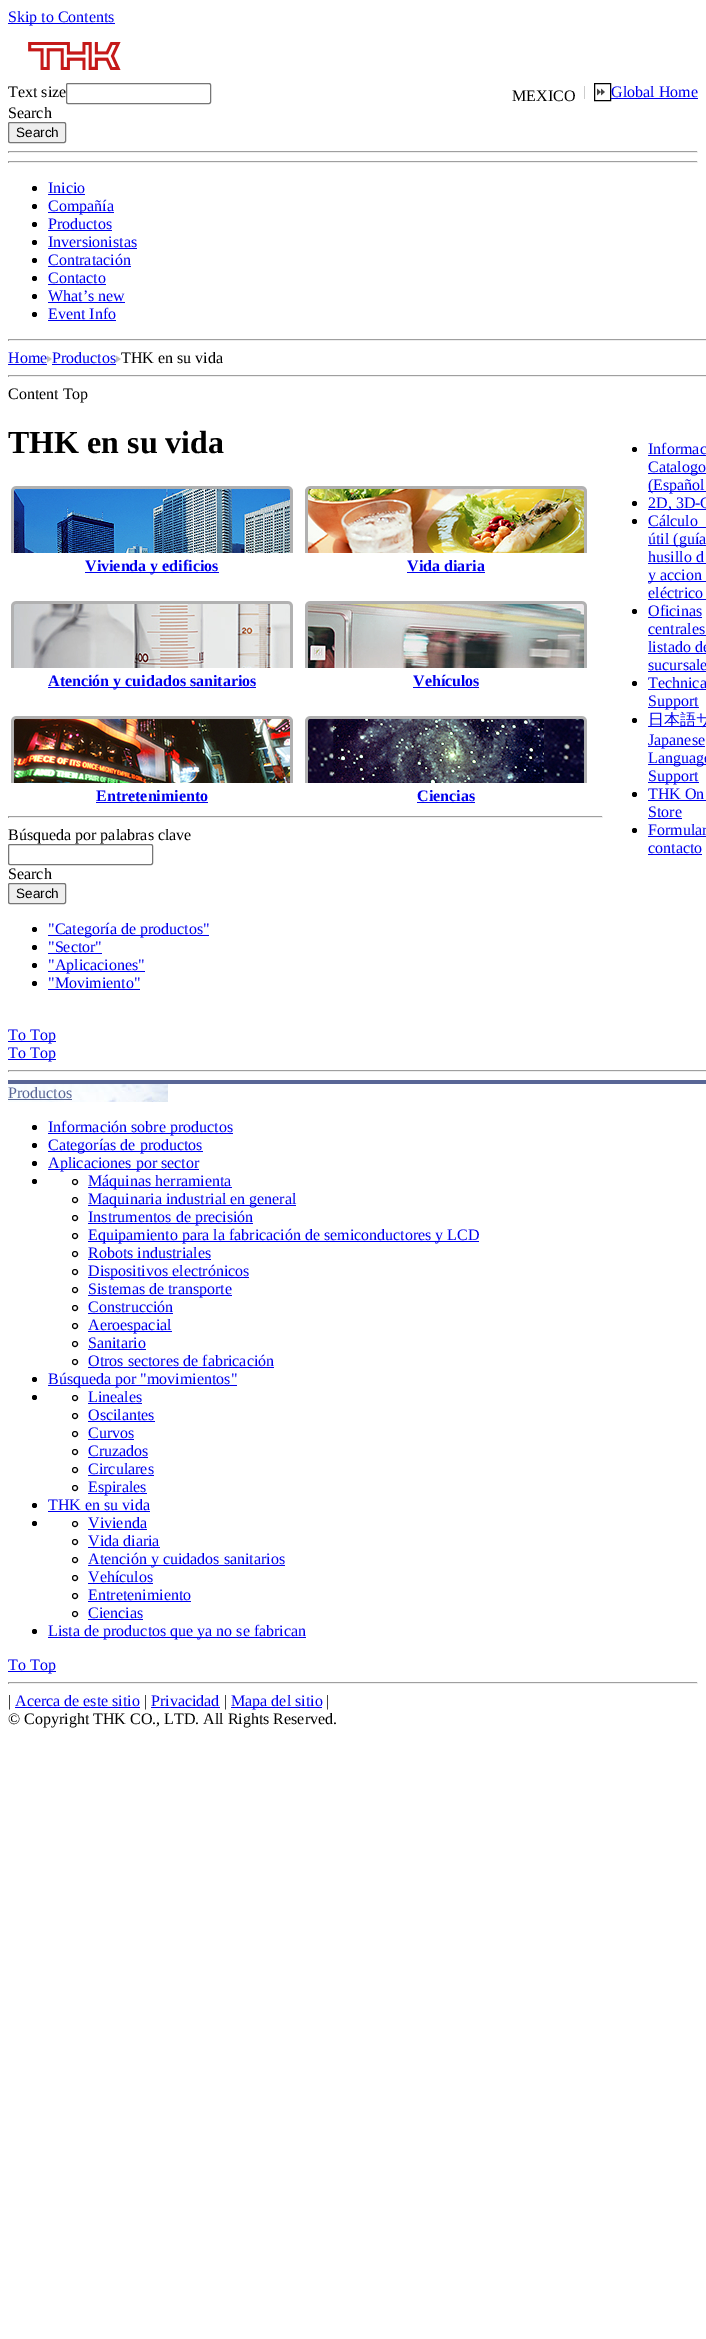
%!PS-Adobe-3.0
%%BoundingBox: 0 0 706 2339
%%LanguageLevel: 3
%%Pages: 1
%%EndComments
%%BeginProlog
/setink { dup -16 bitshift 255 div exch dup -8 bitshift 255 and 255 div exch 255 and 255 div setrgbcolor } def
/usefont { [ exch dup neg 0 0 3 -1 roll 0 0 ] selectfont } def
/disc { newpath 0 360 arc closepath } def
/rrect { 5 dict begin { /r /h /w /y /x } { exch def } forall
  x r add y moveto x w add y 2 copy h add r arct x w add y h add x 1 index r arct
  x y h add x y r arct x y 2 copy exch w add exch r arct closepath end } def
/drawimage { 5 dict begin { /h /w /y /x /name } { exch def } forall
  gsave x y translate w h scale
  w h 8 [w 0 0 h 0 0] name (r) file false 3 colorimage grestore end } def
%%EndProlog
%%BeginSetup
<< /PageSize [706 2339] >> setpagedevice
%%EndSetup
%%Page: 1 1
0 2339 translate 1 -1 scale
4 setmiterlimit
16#FFFFFF setink
0 0 706 2339 rectfill
16#0000EE setink
8 23 107 1 rectfill
/LiberationSerif-Regular 16 usefont
8 22 moveto (Skip to Contents) show
(img1.raw) 28 42 93 28 drawimage
16#000000 setink
8 97 moveto (Text size) show
16#CCCCCC setink
584 86 1 13 rectfill
16#000000 setink
594.5 83.5 16 17 rectstroke
512 101 moveto (MEXICO) show
(img2.raw) 597 88 8 8 drawimage
16#0000EE setink
611 97 moveto (Global Home) show
611 98 87 1 rectfill
16#767676 setink
66.5 83.5 144 20 1.5 rrect stroke
16#000000 setink
8 118 moveto (Search) show
16#EFEFEF setink
8.5 122.5 57 20 1.5 rrect gsave fill grestore
16#767676 setink
stroke
/LiberationSans-Regular 13.5 usefont
16#000000 setink
16 137 moveto (Search) show
[
    [8 151 690 1 16#9F9F9F]
    [697 151 1 2 16#EEEEEE]
    [8 152 690 1 16#EEEEEE]
    [8 151 1 2 16#9F9F9F]
    [8 161 690 1 16#9F9F9F]
    [697 161 1 2 16#EEEEEE]
    [8 162 690 1 16#EEEEEE]
    [8 161 1 2 16#9F9F9F]
] { aload pop setink rectfill } forall
16#000000 setink
34.5 188.5 2.5 disc fill
/LiberationSerif-Regular 16 usefont
16#0000EE setink
48 193 moveto (Inicio) show
48 194 37 1 rectfill
16#000000 setink
34.5 206.5 2.5 disc fill
16#0000EE setink
48 212 66 1 rectfill
48 211 moveto (Compañía) show
16#000000 setink
34.5 224.5 2.5 disc fill
16#0000EE setink
48 229 moveto (Productos) show
48 230 64 1 rectfill
16#000000 setink
34.5 242.5 2.5 disc fill
16#0000EE setink
48 247 moveto (Inversionistas) show
48 248 89 1 rectfill
16#000000 setink
34.5 260.5 2.5 disc fill
16#0000EE setink
48 265 moveto (Contratación) show
48 266 83 1 rectfill
16#000000 setink
34.5 278.5 2.5 disc fill
16#0000EE setink
48 283 moveto (Contacto) show
48 284 58 1 rectfill
16#000000 setink
34.5 296.5 2.5 disc fill
16#0000EE setink
48 301 moveto (What’s new) show
48 302 77 1 rectfill
16#000000 setink
34.5 314.5 2.5 disc fill
16#0000EE setink
48 319 moveto (Event Info) show
[
    [48 320 68 1 16#0000EE]
    [8 339 698 1 16#9F9F9F]
    [8 340 698 1 16#EEEEEE]
    [8 339 1 2 16#9F9F9F]
] { aload pop setink rectfill } forall
16#0000EE setink
8 363 moveto (Home) show
8 364 39 1 rectfill
(img3.raw) 47 355 5 8 drawimage
52 363 moveto (Productos) show
52 364 64 1 rectfill
(img3.raw) 116 355 5 8 drawimage
16#000000 setink
121 363 moveto (THK en su vida) show
[
    [8 375 698 1 16#9F9F9F]
    [8 376 698 1 16#EEEEEE]
    [8 375 1 2 16#9F9F9F]
] { aload pop setink rectfill } forall
16#000000 setink
8 399 moveto (Content Top) show
/LiberationSerif-Bold 32 usefont
8 453 moveto (THK en su vida) show
(img4.raw) 11 486 282 67 drawimage
(img5.raw) 305 486 282 67 drawimage
16#0000EE setink
85 572 134 1 rectfill
/LiberationSerif-Bold 16 usefont
85 571 moveto (Vivienda y edificios) show
407 571 moveto (Vida diaria) show
407 572 78 1 rectfill
(img6.raw) 11 601 282 67 drawimage
(img7.raw) 305 601 282 67 drawimage
48 687 208 1 rectfill
48 686 moveto (Atención y cuidados sanitarios) show
413 686 moveto (Vehículos) show
413 687 66 1 rectfill
(img8.raw) 11 716 282 67 drawimage
(img9.raw) 305 716 282 67 drawimage
96 801 moveto (Entretenimiento) show
96 802 112 1 rectfill
417 801 moveto (Ciencias) show
[
    [417 802 58 1 16#0000EE]
    [8 816 595 1 16#9F9F9F]
    [602 816 1 2 16#EEEEEE]
    [8 817 595 1 16#EEEEEE]
    [8 816 1 2 16#9F9F9F]
] { aload pop setink rectfill } forall
/LiberationSerif-Regular 16 usefont
16#000000 setink
8 840 moveto (Búsqueda por palabras clave) show
16#767676 setink
8.5 844.5 144 20 1.5 rrect stroke
16#000000 setink
8 879 moveto (Search) show
16#EFEFEF setink
8.5 883.5 57 20 1.5 rrect gsave fill grestore
16#767676 setink
stroke
/LiberationSans-Regular 13.5 usefont
16#000000 setink
16 898 moveto (Search) show
34.5 929.5 2.5 disc fill
16#0000EE setink
48 935 161 1 rectfill
/LiberationSerif-Regular 16 usefont
48 934 moveto ("Categoría de productos") show
16#000000 setink
34.5 947.5 2.5 disc fill
16#0000EE setink
48 952 moveto ("Sector") show
48 953 54 1 rectfill
16#000000 setink
34.5 965.5 2.5 disc fill
16#0000EE setink
48 971 97 1 rectfill
48 970 moveto ("Aplicaciones") show
16#000000 setink
34.5 983.5 2.5 disc fill
16#0000EE setink
48 988 moveto ("Movimiento") show
48 989 92 1 rectfill
8 1041 48 1 rectfill
8 1040 moveto (To Top) show
8 1059 48 1 rectfill
8 1058 moveto (To Top) show
16#000000 setink
634.5 449.5 2.5 disc fill
16#0000EE setink
648 454 moveto (Informac) show
648 455 58 1 rectfill
648 473 58 1 rectfill
648 472 moveto (Catalogo) show
648 491 58 1 rectfill
648 490 moveto (\(Español) show
16#000000 setink
634.5 503.5 2.5 disc fill
16#0000EE setink
648 509 58 1 rectfill
648 508 moveto (2D, 3D-C) show
16#000000 setink
634.5 521.5 2.5 disc fill
16#0000EE setink
648 526 moveto (Cálculo) show
648 527 58 1 rectfill
648 545 58 1 rectfill
648 544 moveto (útil \(guía) show
648 562 moveto (husillo d) show
648 563 58 1 rectfill
648 581 58 1 rectfill
648 580 moveto (y accion) show
648 598 moveto (eléctrico) show
648 599 58 1 rectfill
16#000000 setink
634.5 611.5 2.5 disc fill
16#0000EE setink
648 616 moveto (Oficinas) show
648 617 54 1 rectfill
648 634 moveto (centrales) show
648 635 58 1 rectfill
648 652 moveto (listado de) show
648 653 58 1 rectfill
648 670 moveto (sucursale) show
648 671 58 1 rectfill
16#000000 setink
634.5 683.5 2.5 disc fill
16#0000EE setink
648 688 moveto (Technica) show
648 689 58 1 rectfill
648 707 51 1 rectfill
648 706 moveto (Support) show
16#000000 setink
634.5 720.5 2.5 disc fill
16#0000EE setink
648 726 58 1 rectfill
/WenQuanYiZenHei-Medium 16 usefont
648 725 moveto (日本語サ) show
648 746 57 1 rectfill
/LiberationSerif-Regular 16 usefont
648 745 moveto (Japanese) show
648 764 58 1 rectfill
648 763 moveto (Language) show
648 782 51 1 rectfill
648 781 moveto (Support) show
16#000000 setink
634.5 794.5 2.5 disc fill
16#0000EE setink
648 799 moveto (THK On) show
648 800 58 1 rectfill
648 817 moveto (Store) show
648 818 34 1 rectfill
16#000000 setink
634.5 830.5 2.5 disc fill
16#0000EE setink
648 835 moveto (Formular) show
648 836 58 1 rectfill
648 853 moveto (contacto) show
[
    [648 854 54 1 16#0000EE]
    [8 1070 698 1 16#9F9F9F]
    [8 1071 698 1 16#EEEEEE]
    [8 1070 1 2 16#9F9F9F]
    [8 1080 698 4 16#596696]
] { aload pop setink rectfill } forall
(img10.raw) 8 1084 160 18 drawimage
8 1098 moveto (Productos) show
8 1099 64 1 rectfill
16#000000 setink
34.5 1127.5 2.5 disc fill
16#0000EE setink
48 1133 185 1 rectfill
48 1132 moveto (Información sobre productos) show
16#000000 setink
34.5 1145.5 2.5 disc fill
16#0000EE setink
48 1151 155 1 rectfill
48 1150 moveto (Categorías de productos) show
16#000000 setink
34.5 1163.5 2.5 disc fill
16#0000EE setink
48 1169 151 1 rectfill
48 1168 moveto (Aplicaciones por sector) show
16#000000 setink
34.5 1181.5 2.5 disc fill
75 1182 2.5 disc stroke
16#0000EE setink
88 1187 144 1 rectfill
88 1186 moveto (Máquinas herramienta) show
16#000000 setink
75 1200 2.5 disc stroke
16#0000EE setink
88 1205 208 1 rectfill
88 1204 moveto (Maquinaria industrial en general) show
16#000000 setink
75 1218 2.5 disc stroke
16#0000EE setink
88 1223 165 1 rectfill
88 1222 moveto (Instrumentos de precisión) show
16#000000 setink
75 1236 2.5 disc stroke
16#0000EE setink
88 1241 391 1 rectfill
88 1240 moveto (Equipamiento para la fabricación de semiconductores y LCD) show
16#000000 setink
75 1254 2.5 disc stroke
16#0000EE setink
88 1258 moveto (Robots industriales) show
88 1259 123 1 rectfill
16#000000 setink
75 1272 2.5 disc stroke
16#0000EE setink
88 1277 161 1 rectfill
88 1276 moveto (Dispositivos electrónicos) show
16#000000 setink
75 1290 2.5 disc stroke
16#0000EE setink
88 1295 144 1 rectfill
88 1294 moveto (Sistemas de transporte) show
16#000000 setink
75 1308 2.5 disc stroke
16#0000EE setink
88 1312 moveto (Construcción) show
88 1313 85 1 rectfill
16#000000 setink
75 1326 2.5 disc stroke
16#0000EE setink
88 1331 84 1 rectfill
88 1330 moveto (Aeroespacial) show
16#000000 setink
75 1344 2.5 disc stroke
16#0000EE setink
88 1348 moveto (Sanitario) show
88 1349 58 1 rectfill
16#000000 setink
75 1362 2.5 disc stroke
16#0000EE setink
88 1366 moveto (Otros sectores de fabricación) show
88 1367 186 1 rectfill
16#000000 setink
34.5 1379.5 2.5 disc fill
16#0000EE setink
48 1385 189 1 rectfill
48 1384 moveto (Búsqueda por "movimientos") show
16#000000 setink
34.5 1397.5 2.5 disc fill
75 1398 2.5 disc stroke
16#0000EE setink
88 1402 moveto (Lineales) show
88 1403 54 1 rectfill
16#000000 setink
75 1416 2.5 disc stroke
16#0000EE setink
88 1420 moveto (Oscilantes) show
88 1421 67 1 rectfill
16#000000 setink
75 1434 2.5 disc stroke
16#0000EE setink
88 1438 moveto (Curvos) show
88 1439 46 1 rectfill
16#000000 setink
75 1452 2.5 disc stroke
16#0000EE setink
88 1456 moveto (Cruzados) show
88 1457 60 1 rectfill
16#000000 setink
75 1470 2.5 disc stroke
16#0000EE setink
88 1474 moveto (Circulares) show
88 1475 66 1 rectfill
16#000000 setink
75 1488 2.5 disc stroke
16#0000EE setink
88 1493 59 1 rectfill
88 1492 moveto (Espirales) show
16#000000 setink
34.5 1505.5 2.5 disc fill
16#0000EE setink
48 1510 moveto (THK en su vida) show
48 1511 102 1 rectfill
16#000000 setink
34.5 1523.5 2.5 disc fill
75 1524 2.5 disc stroke
16#0000EE setink
88 1528 moveto (Vivienda) show
88 1529 59 1 rectfill
16#000000 setink
75 1542 2.5 disc stroke
16#0000EE setink
88 1546 moveto (Vida diaria) show
88 1547 72 1 rectfill
16#000000 setink
75 1560 2.5 disc stroke
16#0000EE setink
88 1565 197 1 rectfill
88 1564 moveto (Atención y cuidados sanitarios) show
16#000000 setink
75 1578 2.5 disc stroke
16#0000EE setink
88 1582 moveto (Vehículos) show
88 1583 65 1 rectfill
16#000000 setink
75 1596 2.5 disc stroke
16#0000EE setink
88 1600 moveto (Entretenimiento) show
88 1601 103 1 rectfill
16#000000 setink
75 1614 2.5 disc stroke
16#0000EE setink
88 1618 moveto (Ciencias) show
88 1619 55 1 rectfill
16#000000 setink
34.5 1631.5 2.5 disc fill
16#0000EE setink
48 1637 258 1 rectfill
48 1636 moveto (Lista de productos que ya no se fabrican) show
8 1671 48 1 rectfill
8 1670 moveto (To Top) show
[
    [8 1682 690 1 16#9F9F9F]
    [697 1682 1 2 16#EEEEEE]
    [8 1683 690 1 16#EEEEEE]
    [8 1682 1 2 16#9F9F9F]
] { aload pop setink rectfill } forall
16#000000 setink
8 1706 moveto (|) show
16#0000EE setink
15 1706 moveto (Acerca de este sitio) show
15 1707 125 1 rectfill
16#000000 setink
144 1706 moveto (|) show
16#0000EE setink
151 1706 moveto (Privacidad) show
151 1707 69 1 rectfill
16#000000 setink
224 1706 moveto (|) show
16#0000EE setink
231 1707 91 1 rectfill
231 1706 moveto (Mapa del sitio) show
16#000000 setink
326 1706 moveto (|) show
8 1724 moveto (© Copyright THK CO., LTD. All Rights Reserved.) show
showpage
%%EOF
